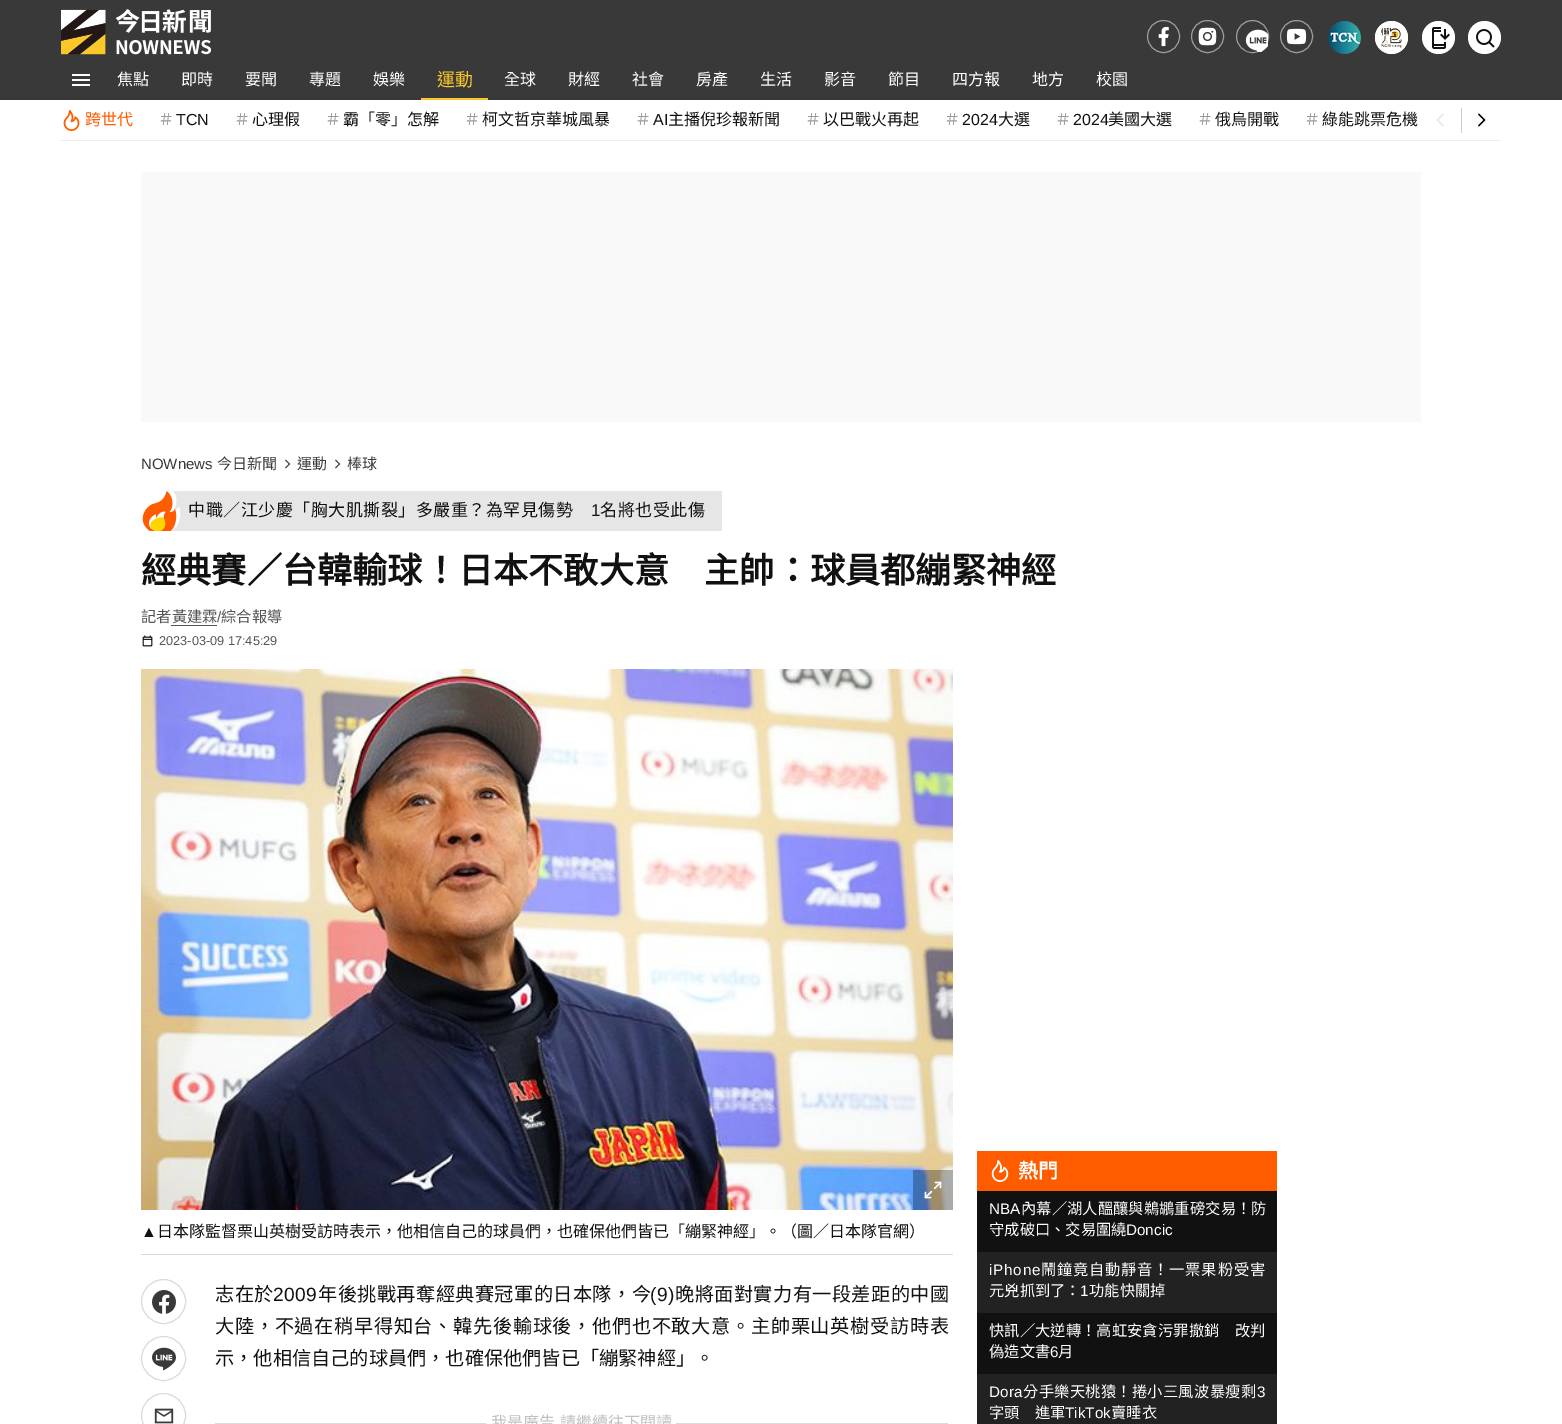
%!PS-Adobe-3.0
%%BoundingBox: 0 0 1562 1424
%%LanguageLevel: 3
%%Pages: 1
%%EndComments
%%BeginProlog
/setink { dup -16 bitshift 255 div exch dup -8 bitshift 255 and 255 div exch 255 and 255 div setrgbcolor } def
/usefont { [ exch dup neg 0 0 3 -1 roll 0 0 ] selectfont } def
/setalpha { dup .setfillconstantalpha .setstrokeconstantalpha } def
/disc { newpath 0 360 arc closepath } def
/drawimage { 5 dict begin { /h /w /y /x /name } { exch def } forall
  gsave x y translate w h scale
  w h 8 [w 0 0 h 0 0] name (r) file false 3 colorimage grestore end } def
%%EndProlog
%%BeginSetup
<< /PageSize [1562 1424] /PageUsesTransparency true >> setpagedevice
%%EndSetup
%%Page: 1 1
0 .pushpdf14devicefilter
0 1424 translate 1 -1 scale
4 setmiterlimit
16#FFFFFF setink
0 0 1562 1424 rectfill
16#393939 setink
0 0 1562 100 rectfill
(img1.raw) 61 9 150 46 drawimage
16#9C9C9C setink
1163.5 36.5 16 disc stroke
(img2.raw) 1158 26 11 21 drawimage
1207.5 36.5 16 disc stroke
(img3.raw) 1198 27 19 19 drawimage
1252.5 36.5 16 disc stroke
(img4.raw) 1245 29 23 23 drawimage
1296.5 36.5 16 disc stroke
(img5.raw) 1286 28 21 17 drawimage
(img6.raw) 1328 21 33 33 drawimage
(img7.raw) 1375 21 33 33 drawimage
(img8.raw) 1375 21 33 33 drawimage
16#FFFFFF setink
1438.5 37.5 16.5 disc fill
(img9.raw) 1432 27 18 22 drawimage
1484.5 37.5 16.5 disc fill
(img10.raw) 1476 29 19 19 drawimage
(img11.raw) 72 74 18 12 drawimage
/NotoSansCJKTC-Regular 16 usefont
[
    [(焦點) 117 85]
    [(即時) 181 85]
    [(要聞) 245 85]
    [(專題) 309 85]
    [(娛樂) 373 85]
] { aload pop moveto show } forall
/NotoSansCJKTC-Regular 18 usefont
16#FAC828 setink
437 86 moveto (運動) show
421 98 67 2 rectfill
/NotoSansCJKTC-Regular 16 usefont
16#FFFFFF setink
[
    [(全球) 504 85]
    [(財經) 568 85]
    [(社會) 632 85]
    [(房產) 696 85]
    [(生活) 760 85]
    [(影音) 824 85]
    [(節目) 888 85]
    [(四方報) 952 85]
    [(地方) 1032 85]
    [(校園) 1096 85]
] { aload pop moveto show } forall
16#EEEEEE setink
61 140 1440 1 rectfill
(img12.raw) 63 110 17 21 drawimage
16#FF5C00 setink
85 125 moveto (跨世代) show
16#999999 setink
158 125 moveto (＃) show
/LiberationSans-Regular 16 usefont
16#111111 setink
176 125 moveto (TCN) show
/NotoSansCJKTC-Regular 16 usefont
16#999999 setink
234 125 moveto (＃) show
16#111111 setink
252 125 moveto (心理假) show
16#999999 setink
325 125 moveto (＃) show
16#111111 setink
343 125 moveto (霸「零」怎解) show
16#999999 setink
464 125 moveto (＃) show
16#111111 setink
482 125 moveto (柯文哲京華城風暴) show
16#999999 setink
635 125 moveto (＃) show
/LiberationSans-Regular 16 usefont
16#111111 setink
653 125 moveto (AI) show
/NotoSansCJKTC-Regular 16 usefont
668 125 moveto (主播倪珍報新聞) show
16#999999 setink
805 125 moveto (＃) show
16#111111 setink
823 125 moveto (以巴戰火再起) show
16#999999 setink
944 125 moveto (＃) show
/LiberationSans-Regular 16 usefont
16#111111 setink
962 125 moveto (2024) show
/NotoSansCJKTC-Regular 16 usefont
998 125 moveto (大選) show
16#999999 setink
1055 125 moveto (＃) show
/LiberationSans-Regular 16 usefont
16#111111 setink
1073 125 moveto (2024) show
/NotoSansCJKTC-Regular 16 usefont
1108 125 moveto (美國大選) show
16#999999 setink
1197 125 moveto (＃) show
16#111111 setink
1215 125 moveto (俄烏開戰) show
16#999999 setink
1304 125 moveto (＃) show
16#111111 setink
1322 125 moveto (綠能跳票危機) show
16#E8E8E8 setink
1.2 setlinewidth
1443.5 114 moveto 1437.5 120 lineto 1443.5 126 lineto stroke
16#CCCCCC setink
1461 108 1 25 rectfill
16#000000 setink
1478.5 126 moveto 1484.5 120 lineto 1478.5 114 lineto stroke
16#F9F9F9 setink
141 172 1280 250 rectfill
/LiberationSans-Regular 15 usefont
16#393939 setink
141 469 moveto (NOWnews) show
/NotoSansCJKTC-Regular 15 usefont
217 469 moveto (今日新聞) show
0.8 setlinewidth
285.5 468 moveto 289.5 464 lineto 285.5 460 lineto stroke
297 469 moveto (運動) show
335.5 468 moveto 339.5 464 lineto 335.5 460 lineto stroke
347 469 moveto (棒球) show
16#E6E6E6 setink
171 491 551 40 rectfill
(img13.raw) 141 491 40 40 drawimage
/NotoSansCJKTC-Regular 17 usefont
16#111111 setink
188 516 moveto 0.5 0 (中職／江少慶「胸大肌撕裂」多嚴重？為罕見傷勢) ashow
/LiberationSans-Regular 17 usefont
591 516 moveto 0.5 0 (1) ashow
/NotoSansCJKTC-Regular 17 usefont
600 516 moveto 0.5 0 (名將也受此傷) ashow
/NotoSansCJKTC-Bold 35.2 usefont
141 583 moveto (經典賽／台韓輸球！日本不敢大意　主帥：球員都繃緊神經) show
/NotoSansCJKTC-Regular 15.25 usefont
16#555555 setink
141 622 moveto (記者黃建霖) show
/LiberationSans-Regular 15.25 usefont
217 622 moveto (/) show
/NotoSansCJKTC-Regular 15.25 usefont
221 622 moveto (綜合報導) show
171 625 46 1 rectfill
(img14.raw) 142 635 11 12 drawimage
/LiberationSans-Regular 12.75 usefont
159 645 moveto (2023-03-09 17:45:29) show
(img15.raw) 141 669 812 541 drawimage
0.3 setalpha
16#000000 setink
913 1170 40 40 rectfill
1 setalpha
(img16.raw) 924 1181 18 18 drawimage
16#DADADA setink
141 1254 812 1 rectfill
/LiberationSans-Regular 16 usefont
16#111111 setink
141 1237 moveto (▲) show
/NotoSansCJKTC-Regular 16 usefont
157 1237 moveto (日本隊監督栗山英樹受訪時表示，他相信自己的球員們，也確保他們皆已「繃緊神經」。（圖／日本隊官網）) show
16#DADADA setink
1 setlinewidth
163.5 1301.5 22 disc stroke
(img17.raw) 152 1290 24 24 drawimage
163.5 1358.5 22 disc stroke
(img18.raw) 152 1347 24 24 drawimage
163.5 1415.5 22 disc stroke
(img19.raw) 154 1408 20 16 drawimage
/NotoSansCJKTC-Regular 19.2 usefont
16#111111 setink
215 1301 moveto 0.4 0 (志在於) ashow
/LiberationSans-Regular 19.2 usefont
273 1301 moveto 0.4 0 (2009) ashow
/NotoSansCJKTC-Regular 19.2 usefont
318 1301 moveto 0.4 0 (年後挑戰再奪經典賽冠軍的日本隊，今) ashow
/LiberationSans-Regular 19.2 usefont
650 1301 moveto 0.4 0 (\(9\)) ashow
/NotoSansCJKTC-Regular 19.2 usefont
675 1301 moveto 0.4 0 (晚將面對實力有一段差距的中國) ashow
215 1333 moveto 0.65 0 (大陸，不過在稍早得知台、韓先後輸球後，他們也不敢大意。主帥栗山英樹受訪時表) ashow
215 1365 moveto (示，他相信自己的球員們，也確保他們皆已「繃緊神經」。) show
16#DADADA setink
215 1423 271 1 rectfill
/NotoSansCJKTC-Regular 16 usefont
16#C0C0C0 setink
491 1428 moveto 1 0 32 (我是廣告 請繼續往下閱讀) widthshow
16#DADADA setink
676 1423 272 1 rectfill
16#FF5C00 setink
977 1151 300 40 rectfill
(img20.raw) 991 1160 18 22 drawimage
/NotoSansCJKTC-Bold 20 usefont
16#FFFFFF setink
1018 1178 moveto (熱門) show
16#111111 setink
977 1191 300 61 rectfill
/LiberationSans-Regular 15.25 usefont
16#FFFFFF setink
989 1214 moveto 0.1 0 (NBA) ashow
/NotoSansCJKTC-Regular 15.25 usefont
1021 1214 moveto 0.1 0 (內幕／湖人醞釀與鵜鶘重磅交易！防) ashow
989 1235 moveto (守成破口、交易圍繞) show
/LiberationSans-Regular 15.25 usefont
1126 1235 moveto (Doncic) show
16#222222 setink
977 1252 300 61 rectfill
16#FFFFFF setink
989 1275 moveto 0.8 0 (iPhone) ashow
/NotoSansCJKTC-Regular 15.25 usefont
1041 1275 moveto 0.8 0 (鬧鐘竟自動靜音！一票果粉受害) ashow
989 1296 moveto (元兇抓到了：) show
/LiberationSans-Regular 15.25 usefont
1080 1296 moveto (1) show
/NotoSansCJKTC-Regular 15.25 usefont
1089 1296 moveto (功能快關掉) show
16#111111 setink
977 1313 300 61 rectfill
16#FFFFFF setink
989 1336 moveto 0.1 0 (快訊／大逆轉！高虹安貪污罪撤銷　改判) ashow
989 1357 moveto (偽造文書) show
/LiberationSans-Regular 15.25 usefont
1050 1357 moveto (6) show
/NotoSansCJKTC-Regular 15.25 usefont
1058 1357 moveto (月) show
16#222222 setink
977 1374 300 50 rectfill
/LiberationSans-Regular 15.25 usefont
16#FFFFFF setink
989 1397 moveto 0.3 0 (Dora) ashow
/NotoSansCJKTC-Regular 15.25 usefont
1023 1397 moveto 0.3 0 (分手樂天桃猿！捲小三風波暴瘦剩) ashow
/LiberationSans-Regular 15.25 usefont
1257 1397 moveto 0.3 0 (3) ashow
/NotoSansCJKTC-Regular 15.25 usefont
989 1418 moveto (字頭　進軍) show
/LiberationSans-Regular 15.25 usefont
1065 1418 moveto (TikTok) show
/NotoSansCJKTC-Regular 15.25 usefont
1111 1418 moveto (賣睡衣) show
.poppdf14devicefilter showpage
%%EOF
